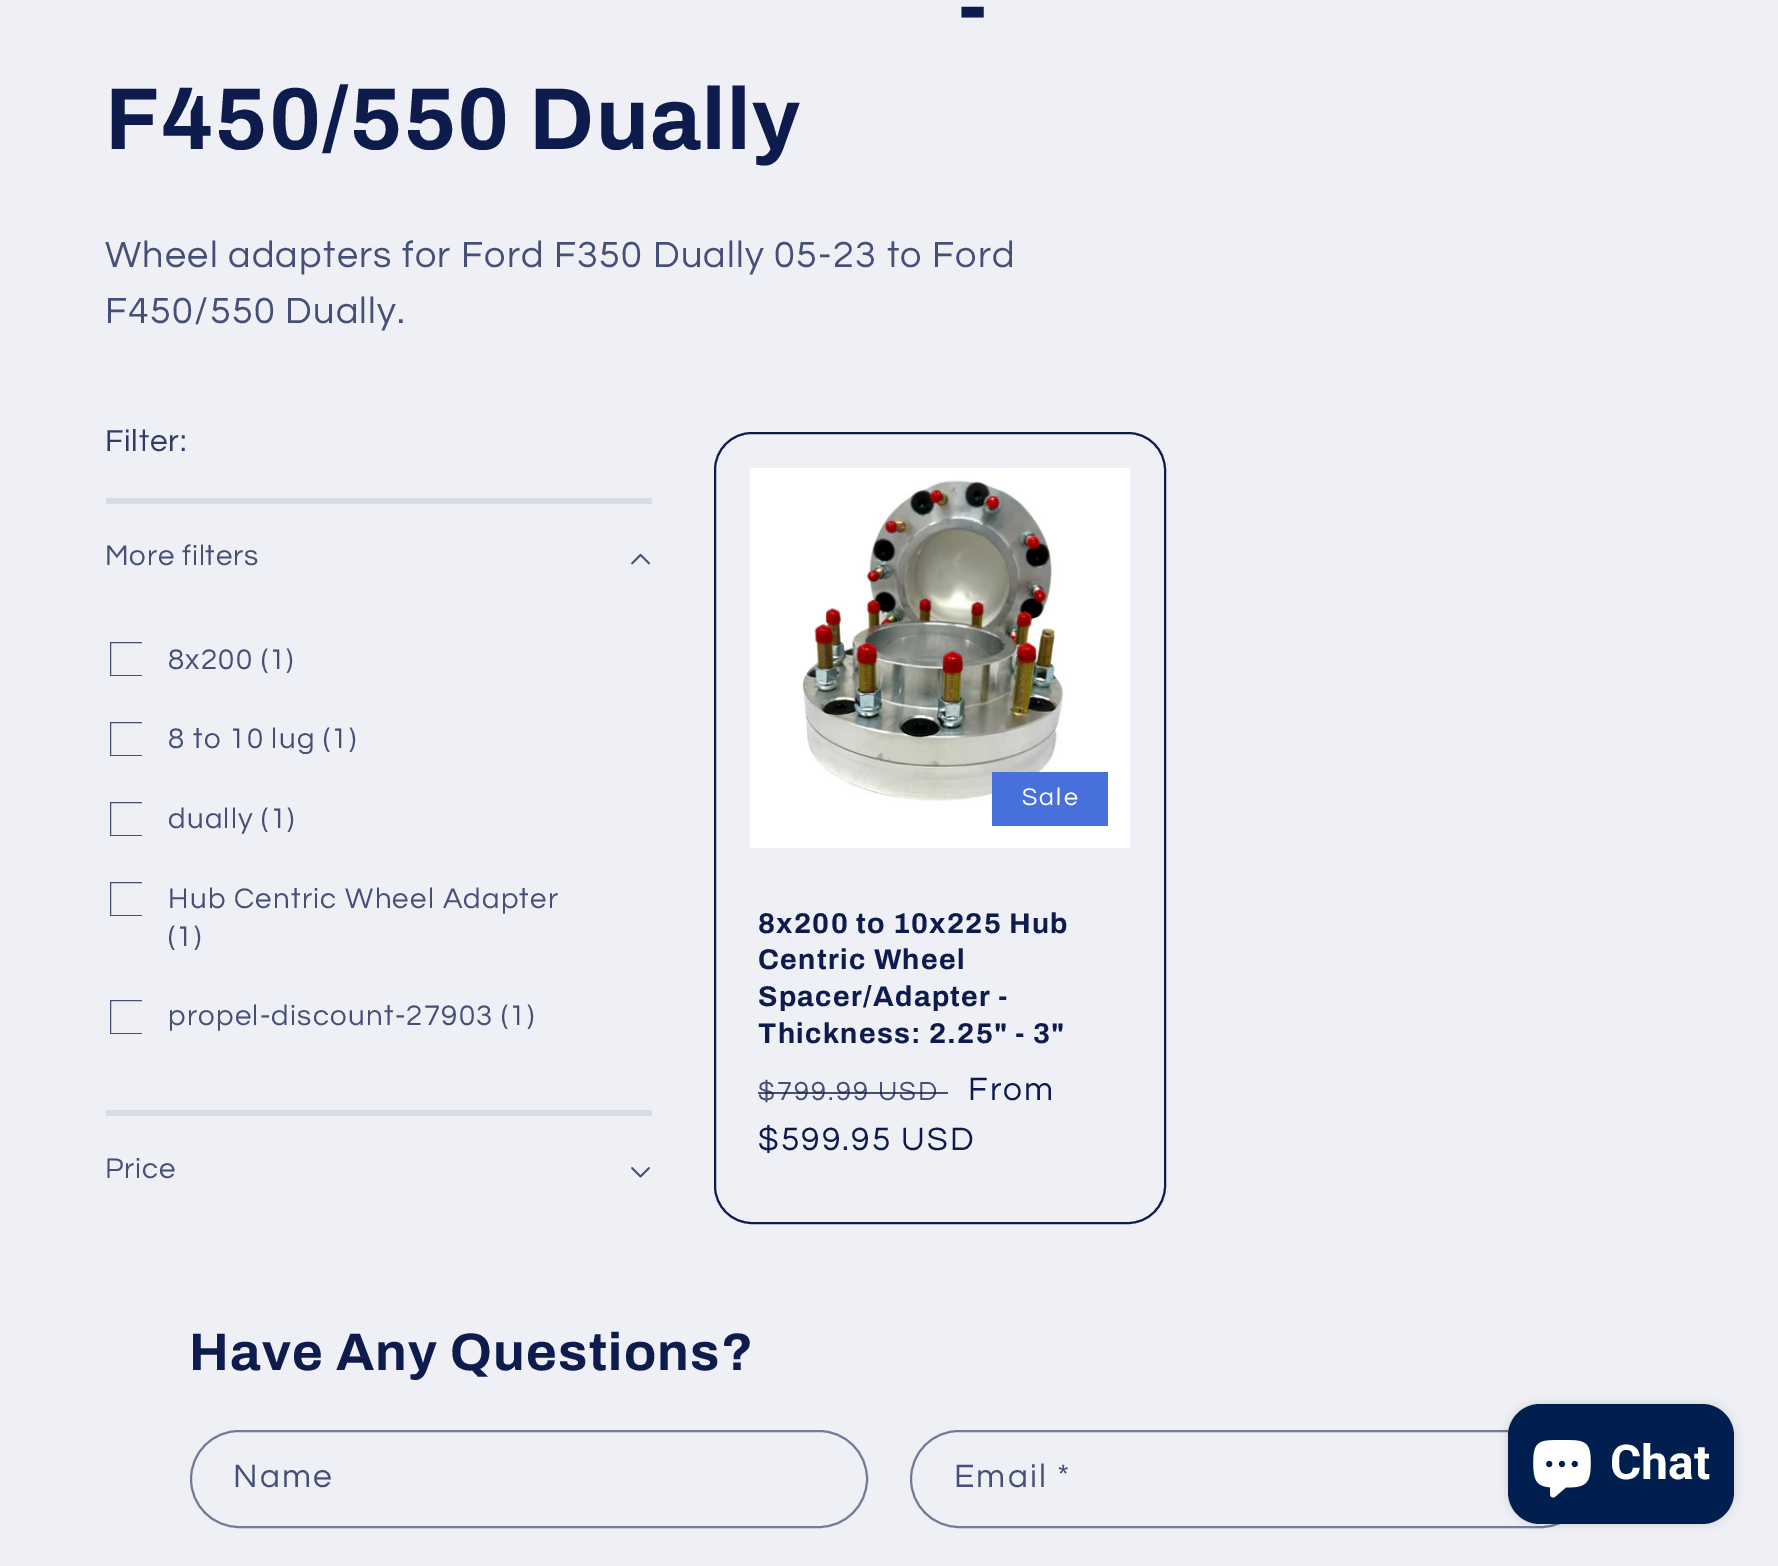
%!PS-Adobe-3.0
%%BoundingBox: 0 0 1778 1566
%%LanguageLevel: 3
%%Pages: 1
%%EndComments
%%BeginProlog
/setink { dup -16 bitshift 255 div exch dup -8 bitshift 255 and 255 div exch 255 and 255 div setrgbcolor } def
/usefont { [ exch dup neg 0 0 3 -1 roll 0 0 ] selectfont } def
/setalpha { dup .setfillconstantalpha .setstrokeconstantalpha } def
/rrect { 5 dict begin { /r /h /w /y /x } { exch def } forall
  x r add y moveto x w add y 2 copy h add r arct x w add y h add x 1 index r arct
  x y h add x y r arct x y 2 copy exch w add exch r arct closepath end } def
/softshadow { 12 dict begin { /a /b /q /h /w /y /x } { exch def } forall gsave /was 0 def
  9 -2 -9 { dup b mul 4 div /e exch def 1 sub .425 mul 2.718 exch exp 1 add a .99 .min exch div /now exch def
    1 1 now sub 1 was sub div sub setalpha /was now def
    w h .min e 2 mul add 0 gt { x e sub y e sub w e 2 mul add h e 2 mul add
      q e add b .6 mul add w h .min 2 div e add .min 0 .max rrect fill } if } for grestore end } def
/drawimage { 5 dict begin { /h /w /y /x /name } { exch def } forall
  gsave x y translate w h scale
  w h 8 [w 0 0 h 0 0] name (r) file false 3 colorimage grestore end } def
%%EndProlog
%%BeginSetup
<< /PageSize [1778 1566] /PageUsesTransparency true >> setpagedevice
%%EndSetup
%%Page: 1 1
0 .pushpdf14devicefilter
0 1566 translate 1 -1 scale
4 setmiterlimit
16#EFF0F5 setink
0 0 1778 1566 rectfill
/Archivo-Bold 88 usefont
16#0E1B4D setink
958 36 moveto 1.3 0 (-) ashow
105 149 moveto 1.3 0 (F450/550 Dually) ashow
/Questrial-Regular 37.8 usefont
16#465077 setink
105 267 moveto 1.25 0 (Wheel adapters for Ford F350 Dually 05-23 to Ford) ashow
105 323 moveto 1.25 0 (F450/550 Dually.) ashow
/Questrial-Regular 31.5 usefont
16#303B66 setink
105 451 moveto 0.8 0 (Filter:) ashow
16#D8DBE4 setink
106 498 546 6 rectfill
/Questrial-Regular 29.4 usefont
16#465077 setink
105 565 moveto 0.8 0 (More filters) ashow
(img1.raw) 631 553 19 12 drawimage
gsave
110 642 32 34 rectclip
2 setlinewidth
110 642 34 34 rectstroke
grestore
168 669 moveto 1.25 0 (8x200 \(1\)) ashow
gsave
110 722 32 34 rectclip
2 setlinewidth
110 722 34 34 rectstroke
grestore
168 748 moveto 1.25 0 (8 to 10 lug \(1\)) ashow
gsave
110 802 32 34 rectclip
2 setlinewidth
110 802 34 34 rectstroke
grestore
168 828 moveto 1.25 0 (dually \(1\)) ashow
gsave
110 882 32 34 rectclip
2 setlinewidth
110 882 34 34 rectstroke
grestore
168 908 moveto 1.25 0 (Hub Centric Wheel Adapter) ashow
168 946 moveto 1.25 0 (\(1\)) ashow
gsave
110 1000 32 34 rectclip
2 setlinewidth
110 1000 34 34 rectstroke
grestore
168 1025 moveto 1.25 0 (propel-discount-27903 \(1\)) ashow
16#D8DBE4 setink
106 1110 546 6 rectfill
16#465077 setink
105 1178 moveto 0.8 0 (Price) ashow
(img2.raw) 631 1167 19 11 drawimage
16#0E1B4D setink
2 setlinewidth
715 433 450 790 37 rrect stroke
(img3.raw) 750 468 380 380 drawimage
16#4770DB setink
992 772 116 54 rectfill
/Questrial-Regular 25 usefont
16#FFFFFF setink
1022 805 moveto 2.1 0 (Sale) ashow
/Archivo-Bold 28.6 usefont
16#0E1B4D setink
758 933 moveto 1.3 0 (8x200 to 10x225 Hub) ashow
758 969 moveto 1.3 0 (Centric Wheel) ashow
758 1006 moveto 1.3 0 (Spacer/Adapter -) ashow
758 1043 moveto 1.3 0 (Thickness: 2.25" - 3") ashow
/Questrial-Regular 27.25 usefont
16#465077 setink
758 1100 moveto 2.1 0 ($799.99 USD) ashow
0.75 setalpha
16#0E1B4D setink
758 1092 190 2 rectfill
/Questrial-Regular 33.5 usefont
1 setalpha
968 1100 moveto 2.1 0 (From) ashow
758 1150 moveto 2.1 0 ($599.95 USD) ashow
/Archivo-Bold 52.75 usefont
189 1370 moveto 1.3 0 (Have Any Questions?) ashow
16#737B99 setink
191 1431 676 96 48 rrect stroke
/Questrial-Regular 33.5 usefont
16#465077 setink
233 1487 moveto 2.1 0 (Name) ashow
16#737B99 setink
911 1431 678 96 48 rrect stroke
16#465077 setink
954 1487 moveto 2.1 0 (Email *) ashow
16#000000 setink
1508 1404 226 120 32 5 0.15 softshadow
16#001F4E setink
1508 1404 226 120 32 rrect fill
(img4.raw) 1533 1440 58 58 drawimage
/Roboto-Bold 48 usefont
16#FFFFFF setink
1610 1479 moveto (Chat) show
.poppdf14devicefilter showpage
%%EOF
